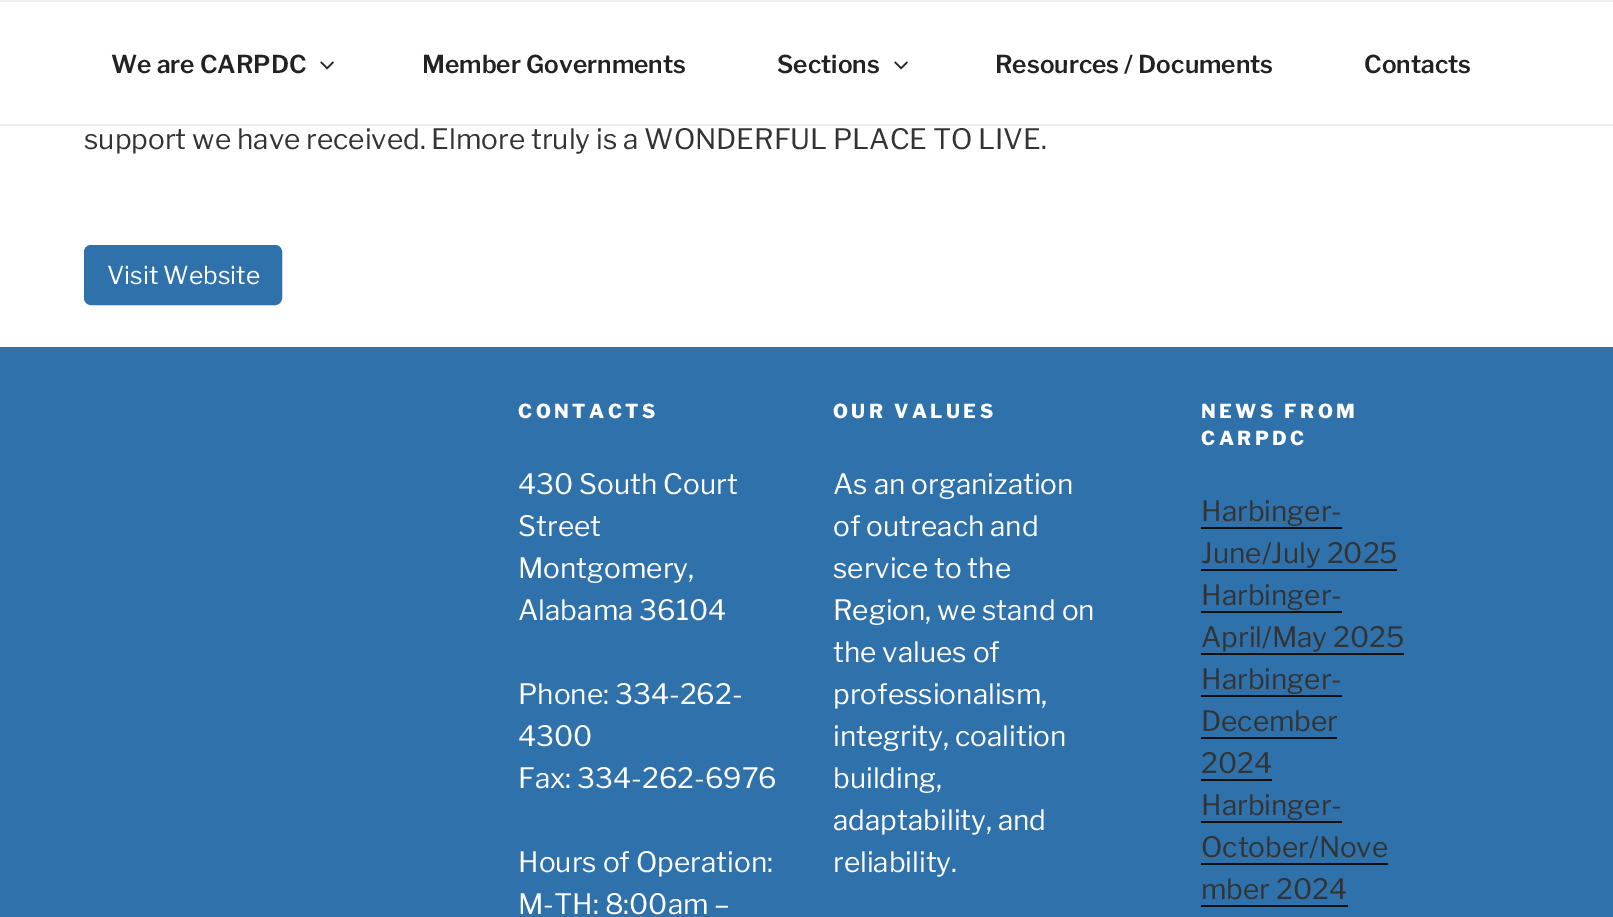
%!PS-Adobe-3.0
%%BoundingBox: 0 0 1613 917
%%LanguageLevel: 3
%%Pages: 1
%%EndComments
%%BeginProlog
/setink { dup -16 bitshift 255 div exch dup -8 bitshift 255 and 255 div exch 255 and 255 div setrgbcolor } def
/usefont { [ exch dup neg 0 0 3 -1 roll 0 0 ] selectfont } def
/rrect { 5 dict begin { /r /h /w /y /x } { exch def } forall
  x r add y moveto x w add y 2 copy h add r arct x w add y h add x 1 index r arct
  x y h add x y r arct x y 2 copy exch w add exch r arct closepath end } def
/drawimage { 5 dict begin { /h /w /y /x /name } { exch def } forall
  gsave x y translate w h scale
  w h 8 [w 0 0 h 0 0] name (r) file false 3 colorimage grestore end } def
%%EndProlog
%%BeginSetup
<< /PageSize [1613 917] >> setpagedevice
%%EndSetup
%%Page: 1 1
0 917 translate 1 -1 scale
4 setmiterlimit
16#FFFFFF setink
0 0 1613 917 rectfill
16#EEEEEE setink
0 0 1613 2 rectfill
0 124 1613 2 rectfill
/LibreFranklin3-Thin 24.5 usefont
16#222222 setink
111 73 moveto (We are CARPDC) show
(img1.raw) 320 61 14 9 drawimage
422 73 moveto (Member Governments) show
777 73 moveto (Sections) show
(img1.raw) 894 61 14 9 drawimage
995 73 moveto (Resources / Documents) show
1364 73 moveto (Contacts) show
/LibreFranklin-Thin 28 usefont
16#333333 setink
84 149 moveto (support we have received. Elmore truly is a WONDERFUL PLACE TO LIVE.) show
16#2F71AB setink
85 246 196 58 6 rrect gsave fill grestore
2 setlinewidth
stroke
/LibreFranklin-Thin 24.5 usefont
16#FFFFFF setink
107 284 moveto (Visit Website) show
16#2F71AB setink
0 347 1613 570 rectfill
/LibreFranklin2-Thin 19.25 usefont
16#FFFFFF setink
518 418 moveto 3.5 0 (CONTACTS) ashow
/LibreFranklin-Thin 28 usefont
[
    [(430 South Court) 518 494]
    [(Street) 518 536]
    [(Montgomery,) 518 578]
    [(Alabama 36104) 518 620]
    [(Phone: 334-262-) 518 704]
    [(4300) 518 746]
    [(Fax: 334-262-6976) 518 788]
    [(Hours of Operation:) 518 872]
    [(M-TH: 8:00am –) 518 914]
] { aload pop moveto show } forall
/LibreFranklin2-Thin 19.25 usefont
833 418 moveto 3.5 0 (OUR VALUES) ashow
/LibreFranklin-Thin 28 usefont
[
    [(As an organization) 833 494]
    [(of outreach and) 833 536]
    [(service to the) 833 578]
    [(Region, we stand on) 833 620]
    [(the values of) 833 662]
    [(professionalism,) 833 704]
    [(integrity, coalition) 833 746]
    [(building,) 833 788]
    [(adaptability, and) 833 830]
    [(reliability.) 833 872]
] { aload pop moveto show } forall
/LibreFranklin2-Thin 19.25 usefont
1201 418 moveto 3.5 0 (NEWS FROM) ashow
1201 445 moveto 3.5 0 (CARPDC) ashow
/LibreFranklin-Thin 28 usefont
16#333333 setink
1201 521 moveto (Harbinger-) show
16#0F0F0F setink
1201 527 141 2 rectfill
16#333333 setink
1201 563 moveto (June/July 2025) show
16#0F0F0F setink
1201 569 196 2 rectfill
16#333333 setink
1201 605 moveto (Harbinger-) show
16#0F0F0F setink
1201 611 141 2 rectfill
16#333333 setink
1201 647 moveto (April/May 2025) show
16#0F0F0F setink
1201 653 203 2 rectfill
16#333333 setink
1201 689 moveto (Harbinger-) show
16#0F0F0F setink
1201 695 141 2 rectfill
16#333333 setink
1201 731 moveto (December) show
16#0F0F0F setink
1201 737 136 2 rectfill
16#333333 setink
1201 773 moveto (2024) show
16#0F0F0F setink
1201 779 71 2 rectfill
16#333333 setink
1201 815 moveto (Harbinger-) show
16#0F0F0F setink
1201 821 141 2 rectfill
16#333333 setink
1201 857 moveto (October/Nove) show
16#0F0F0F setink
1201 863 187 2 rectfill
16#333333 setink
1201 899 moveto (mber 2024) show
16#0F0F0F setink
1201 905 147 2 rectfill
showpage
%%EOF
